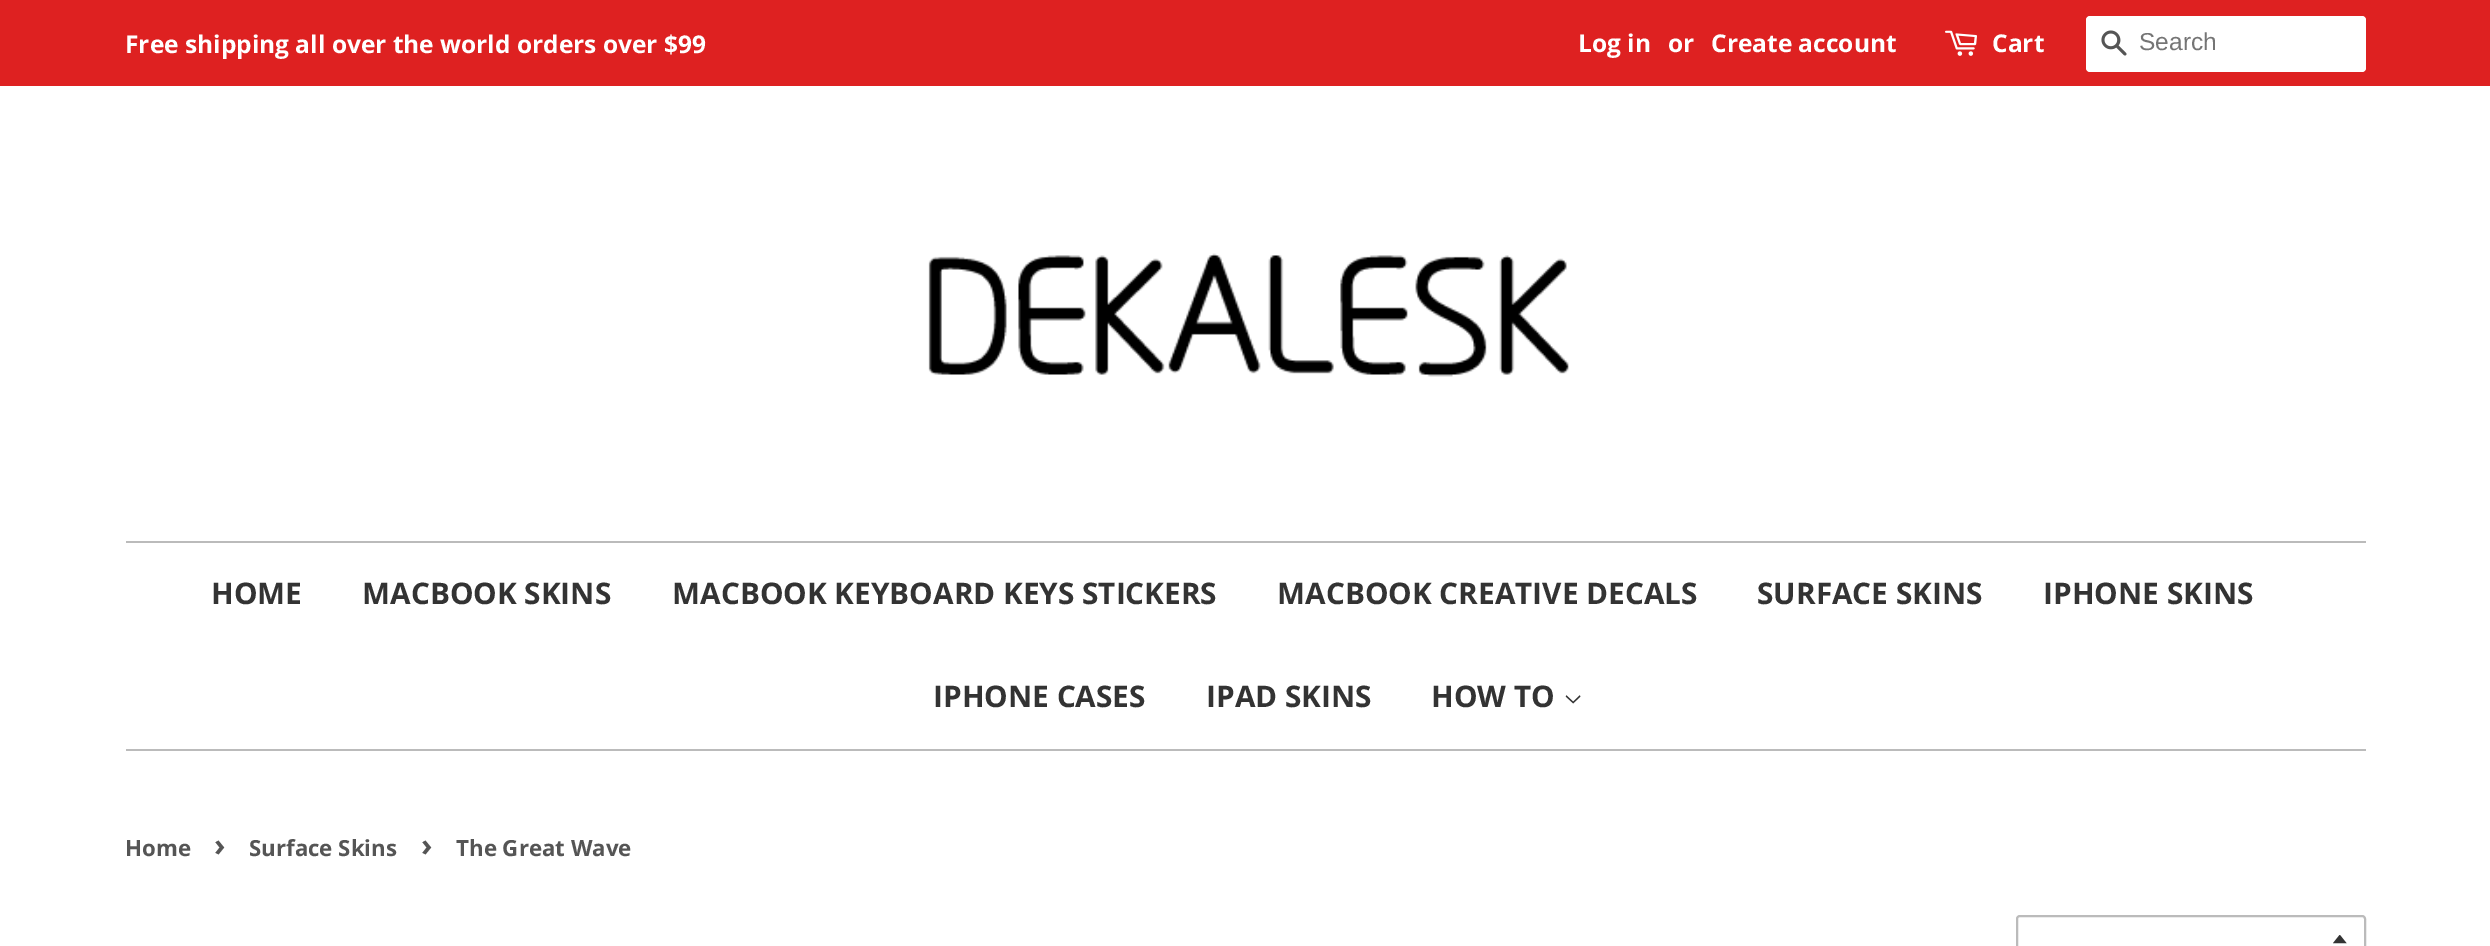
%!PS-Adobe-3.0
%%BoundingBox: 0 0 2490 946
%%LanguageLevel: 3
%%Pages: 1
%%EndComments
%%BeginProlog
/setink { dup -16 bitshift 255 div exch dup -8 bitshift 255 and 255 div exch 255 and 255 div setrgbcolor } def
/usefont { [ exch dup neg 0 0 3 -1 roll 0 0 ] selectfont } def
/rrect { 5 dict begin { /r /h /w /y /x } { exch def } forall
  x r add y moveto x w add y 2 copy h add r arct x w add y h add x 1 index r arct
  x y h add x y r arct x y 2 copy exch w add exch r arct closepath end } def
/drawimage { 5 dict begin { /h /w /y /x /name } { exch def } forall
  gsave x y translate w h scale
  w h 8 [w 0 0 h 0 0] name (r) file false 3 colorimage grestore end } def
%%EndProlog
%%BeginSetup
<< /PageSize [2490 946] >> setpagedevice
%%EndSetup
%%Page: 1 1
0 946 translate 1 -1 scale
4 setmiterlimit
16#FFFFFF setink
0 0 2490 946 rectfill
16#DE2121 setink
0 0 2490 86 rectfill
/OpenSans-Bold 24.5 usefont
16#FFFFFF setink
[
    [(Free shipping all over the world orders over $99) 125 53]
    [(Log in) 1578 52]
    [(or) 1668 52]
    [(Create account) 1711 52]
] { aload pop moveto show } forall
(img1.raw) 1945 30 32 26 drawimage
1992 52 moveto (Cart) show
2086 16 280 56 4 rrect fill
(img2.raw) 2101 30 26 26 drawimage
/LiberationSans-Regular 24.5 usefont
16#757575 setink
2139 50 moveto (Search) show
(img3.raw) 928 253 641 124 drawimage
16#BBBBBB setink
126 541 2240 2 rectfill
126 749 2240 2 rectfill
/OpenSans-Bold 29.75 usefont
16#333333 setink
[
    [(HOME) 211 604]
    [(MACBOOK SKINS) 362 604]
    [(MACBOOK KEYBOARD KEYS STICKERS) 672 604]
    [(MACBOOK CREATIVE DECALS) 1277 604]
    [(SURFACE SKINS) 1757 604]
    [(IPHONE SKINS) 2043 604]
    [(IPHONE CASES) 933 707]
    [(IPAD SKINS) 1206 707]
    [(HOW TO) 1431 707]
] { aload pop moveto show } forall
(img4.raw) 1565 695 16 9 drawimage
/OpenSans-Bold 22.25 usefont
16#555555 setink
125 856 moveto (Home) show
/OpenSans-Bold 31 usefont
214 856 moveto (›) show
/OpenSans-Bold 22.25 usefont
249 856 moveto (Surface Skins) show
/OpenSans-Bold 31 usefont
421 856 moveto (›) show
/OpenSans-Bold 22.25 usefont
456 856 moveto (The Great Wave) show
(img5.raw) 2333 935 14 9 drawimage
16#BBBBBB setink
2 setlinewidth
2017 916 348 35 3 rrect stroke
showpage
%%EOF
